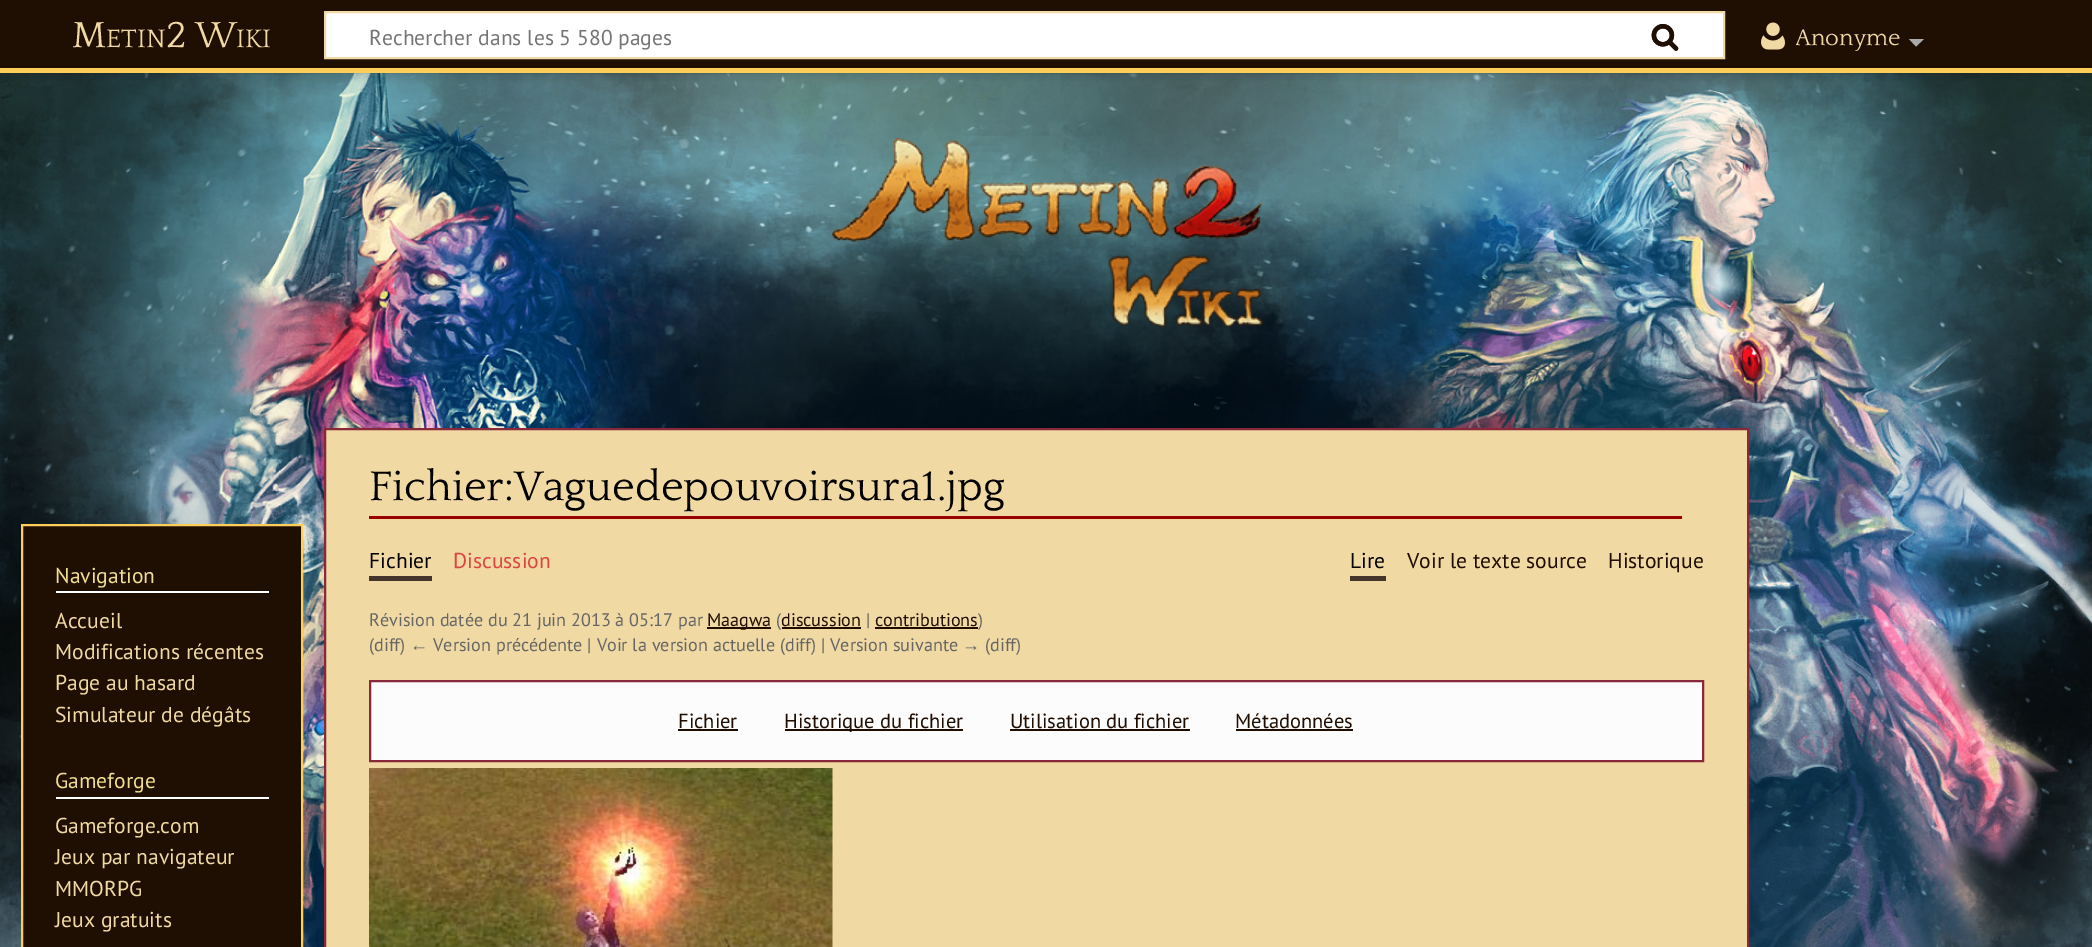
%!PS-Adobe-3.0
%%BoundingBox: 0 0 2092 947
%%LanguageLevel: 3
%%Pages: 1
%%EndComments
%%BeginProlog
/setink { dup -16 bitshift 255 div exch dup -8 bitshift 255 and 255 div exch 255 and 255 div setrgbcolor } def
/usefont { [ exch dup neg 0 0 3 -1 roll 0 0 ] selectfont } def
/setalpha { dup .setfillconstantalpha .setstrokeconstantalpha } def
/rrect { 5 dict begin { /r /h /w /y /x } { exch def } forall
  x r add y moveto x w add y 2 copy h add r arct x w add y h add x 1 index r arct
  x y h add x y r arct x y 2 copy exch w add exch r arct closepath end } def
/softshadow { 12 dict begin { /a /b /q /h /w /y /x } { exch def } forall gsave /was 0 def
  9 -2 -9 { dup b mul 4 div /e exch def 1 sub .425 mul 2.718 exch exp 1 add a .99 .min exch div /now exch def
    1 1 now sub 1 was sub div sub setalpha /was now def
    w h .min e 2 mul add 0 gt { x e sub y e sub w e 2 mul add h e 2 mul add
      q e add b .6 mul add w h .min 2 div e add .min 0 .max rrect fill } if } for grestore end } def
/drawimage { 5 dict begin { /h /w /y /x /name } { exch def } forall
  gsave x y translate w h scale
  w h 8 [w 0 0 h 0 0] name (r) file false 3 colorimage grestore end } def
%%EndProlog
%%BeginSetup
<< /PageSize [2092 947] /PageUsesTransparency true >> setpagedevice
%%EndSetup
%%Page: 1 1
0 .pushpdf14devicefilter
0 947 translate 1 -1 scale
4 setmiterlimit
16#FFFFFF setink
0 0 2092 947 rectfill
(img1.raw) 0 73 2092 874 drawimage
16#000000 setink
0 68 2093 5 0 1.5 0.2 softshadow
-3 69 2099 11 0 2 0.07 softshadow
16#1F0E02 setink
0 0 2092 68 rectfill
/Quattrocento-Regular 38 usefont
16#F0D9A2 setink
72 47 moveto (M) show
/Quattrocento-Regular 26.5 usefont
106 47 moveto (ETIN) show
/Quattrocento-Regular 38 usefont
166 47 moveto (2 W) show
/Quattrocento-Regular 26.5 usefont
236 47 moveto (IKI) show
16#FFFFFF setink
325 12 moveto 1724 12 lineto 1724 58 lineto 325 58 lineto closepath gsave fill grestore
16#F0D9A2 setink
2 setlinewidth
stroke
(img2.raw) 1651 24 28 27 drawimage
/PTSans-Regular 21.6 usefont
16#757575 setink
369 45 moveto (Rechercher dans les 5 580 pages) show
(img3.raw) 1651 24 28 27 drawimage
(img4.raw) 1761 22 24 28 drawimage
gsave
1796 27 105 24 rectclip
/Quattrocento-Regular 23.75 usefont
16#F0D9A2 setink
1795 45 moveto (Anonyme) show
grestore
16#AAAAAA setink
1924 39 moveto 1916 46.5 lineto 1909 39 lineto closepath fill
16#FECE58 setink
0 68 2092 5 rectfill
(img5.raw) 831 138 432 189 drawimage
16#1F0E02 setink
22 525 moveto 302 525 lineto 302 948 lineto 22 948 lineto closepath gsave fill grestore
16#FECE58 setink
stroke
16#FFFFFF setink
56 591 213 2 rectfill
16#F1DE8E setink
55 583 moveto (Navigation) show
16#F0D9A2 setink
[
    [(Accueil) 55 628]
    [(Modifications récentes) 55 659]
    [(Page au hasard) 55 690]
    [(Simulateur de dégâts) 55 722]
] { aload pop moveto show } forall
16#FFFFFF setink
56 797 213 2 rectfill
16#F1DE8E setink
55 788 moveto (Gameforge) show
16#F0D9A2 setink
[
    [(Gameforge.com) 55 833]
    [(Jeux par navigateur) 55 864]
    [(MMORPG) 55 896]
    [(Jeux gratuits) 55 927]
] { aload pop moveto show } forall
325 429 moveto 1748 429 lineto 1748 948 lineto 325 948 lineto closepath gsave fill grestore
16#88283A setink
stroke
16#990000 setink
369 516 1313 3 rectfill
/Quattrocento-Regular 43.25 usefont
16#000000 setink
369 500 moveto (Fichier:Vaguedepouvoirsura1.jpg) show
16#45342C setink
369 576 63 5 rectfill
/PTSans-Regular 21.6 usefont
16#000000 setink
369 568 moveto (Fichier) show
16#DD4444 setink
453 568 moveto (Discussion) show
16#45342C setink
1350 576 36 5 rectfill
16#000000 setink
1350 568 moveto (Lire) show
16#1E0D00 setink
1407 568 moveto (Voir le texte source) show
1608 568 moveto (Historique) show
/PTSans-Regular 18.15 usefont
16#666666 setink
369 626 moveto (Révision datée du 21 juin 2013 à 05:17 par) show
16#1E0D00 setink
707 627 64 2 rectfill
707 626 moveto (Maagwa) show
16#666666 setink
776 626 moveto (\() show
16#1E0D00 setink
782 627 79 2 rectfill
781 626 moveto (discussion) show
16#666666 setink
866 626 moveto (|) show
16#1E0D00 setink
875 626 moveto (contributions) show
875 627 103 2 rectfill
16#666666 setink
978 626 moveto (\)) show
369 651 moveto (\(diff\)) show
/LiberationSans-Regular 18.15 usefont
410 651 moveto (←) show
/PTSans-Regular 18.15 usefont
433 651 moveto (Version précédente | Voir la version actuelle \(diff\) | Version suivante) show
/LiberationSans-Regular 18.15 usefont
962 651 moveto (→) show
/PTSans-Regular 18.15 usefont
985 651 moveto (\(diff\)) show
16#FCFCFC setink
370 681 moveto 1703 681 lineto 1703 761 lineto 370 761 lineto closepath gsave fill grestore
16#88283A setink
stroke
/PTSans-Regular 20.5 usefont
16#1E0D00 setink
678 728 moveto (Fichier) show
678 729 60 2 rectfill
785 729 178 2 rectfill
784 728 moveto (Historique du fichier) show
1010 728 moveto (Utilisation du fichier) show
1010 729 180 2 rectfill
1235 728 moveto (Métadonnées) show
1236 729 117 2 rectfill
(img6.raw) 369 768 464 179 drawimage
.poppdf14devicefilter showpage
%%EOF
